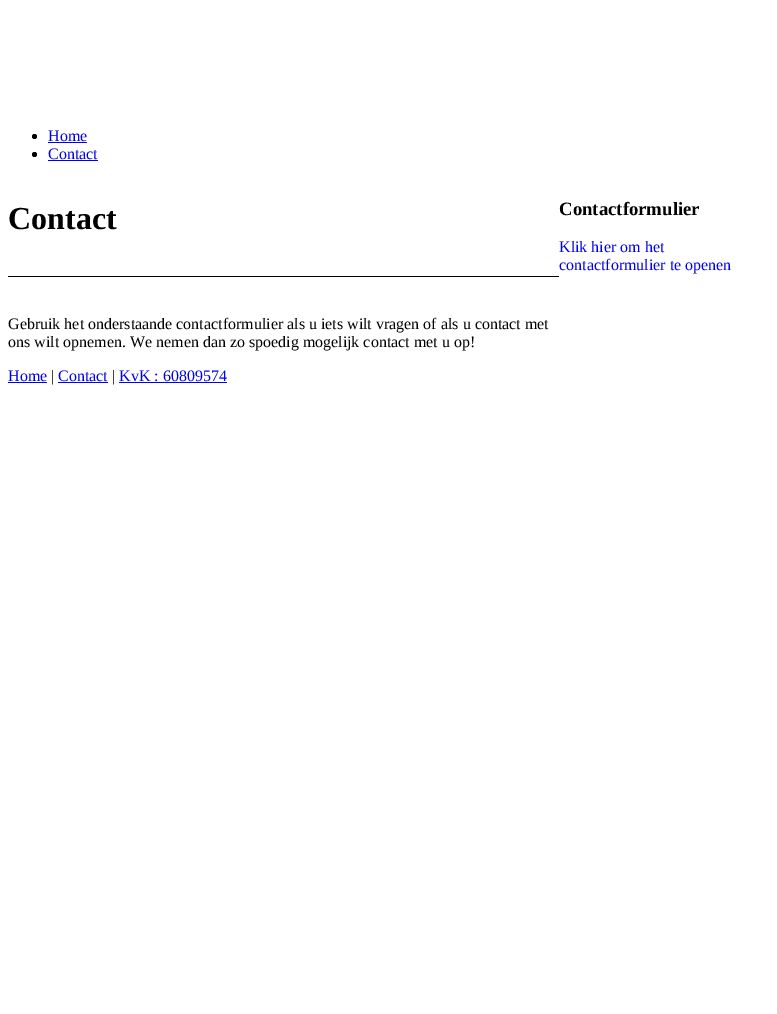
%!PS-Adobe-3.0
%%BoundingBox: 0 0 777 1014
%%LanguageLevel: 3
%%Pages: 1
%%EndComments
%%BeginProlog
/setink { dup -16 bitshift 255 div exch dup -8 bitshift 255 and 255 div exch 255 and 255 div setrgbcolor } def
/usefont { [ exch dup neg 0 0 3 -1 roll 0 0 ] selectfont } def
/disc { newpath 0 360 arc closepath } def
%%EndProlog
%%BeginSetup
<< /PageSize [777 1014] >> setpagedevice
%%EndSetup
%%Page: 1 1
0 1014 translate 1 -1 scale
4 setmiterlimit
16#FFFFFF setink
0 0 777 1014 rectfill
16#000000 setink
34.5 136.5 2.5 disc fill
/LiberationSerif-Regular 16 usefont
16#0000EE setink
48 141 moveto (Home) show
48 142 39 1 rectfill
16#000000 setink
34.5 154.5 2.5 disc fill
16#0000EE setink
48 159 moveto (Contact) show
48 160 50 1 rectfill
/LiberationSerif-Bold 32 usefont
16#000000 setink
8 229 moveto (Contact) show
8 276 551 1 rectfill
/LiberationSerif-Regular 16 usefont
8 329 moveto (Gebruik het onderstaande contactformulier als u iets wilt vragen of als u contact met) show
8 347 moveto (ons wilt opnemen. We nemen dan zo spoedig mogelijk contact met u op!) show
/LiberationSerif-Bold 18.75 usefont
559 215 moveto (Contactformulier) show
/LiberationSerif-Regular 16 usefont
16#0000EE setink
[
    [(Klik hier om het) 559 252]
    [(contactformulier te openen) 559 270]
    [(Home) 8 381]
] { aload pop moveto show } forall
8 382 39 1 rectfill
16#000000 setink
51 381 moveto (|) show
16#0000EE setink
58 381 moveto (Contact) show
58 382 50 1 rectfill
16#000000 setink
112 381 moveto (|) show
16#0000EE setink
119 381 moveto (KvK : 60809574) show
119 382 108 1 rectfill
showpage
%%EOF
